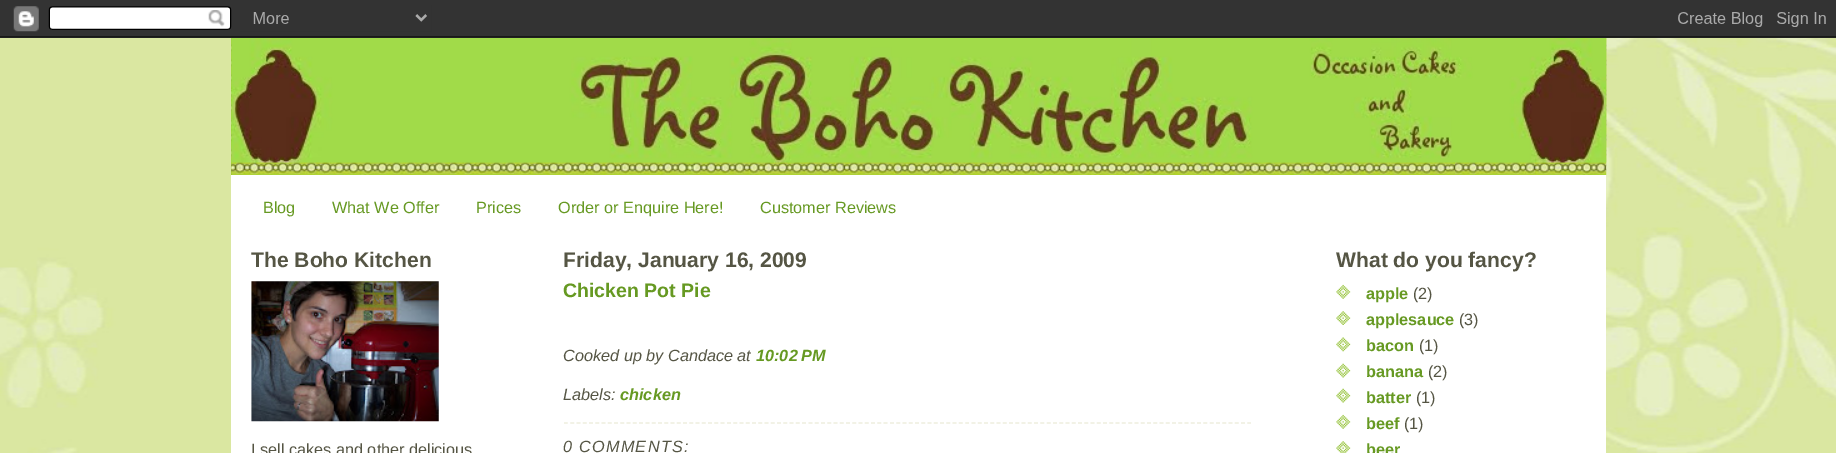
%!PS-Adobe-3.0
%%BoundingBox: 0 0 1836 453
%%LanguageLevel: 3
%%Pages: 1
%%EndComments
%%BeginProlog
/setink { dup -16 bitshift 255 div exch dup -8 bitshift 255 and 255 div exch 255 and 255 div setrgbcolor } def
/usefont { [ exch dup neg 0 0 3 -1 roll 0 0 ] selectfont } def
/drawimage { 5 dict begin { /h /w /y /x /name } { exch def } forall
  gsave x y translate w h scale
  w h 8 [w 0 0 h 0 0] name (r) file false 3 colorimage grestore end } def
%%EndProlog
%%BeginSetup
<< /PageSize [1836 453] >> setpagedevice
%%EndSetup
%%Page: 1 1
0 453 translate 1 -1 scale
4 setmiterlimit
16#FFFFFF setink
0 0 1836 453 rectfill
(img1.raw) 0 36 1836 417 drawimage
(img2.raw) 0 0 1836 38 drawimage
231 38 1375 415 rectfill
(img3.raw) 231 38 1376 137 drawimage
(img4.raw) 231 38 1376 125 drawimage
/LiberationSans-Regular 16.25 usefont
16#669922 setink
[
    [(Blog) 263 213]
    [(What We Offer) 332 213]
    [(Prices) 476 213]
    [(Order or Enquire Here!) 558 213]
    [(Customer Reviews) 760 213]
] { aload pop moveto show } forall
gsave
251 234 250 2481 rectclip
/LiberationSans-Bold 21.1 usefont
16#555544 setink
251 267 moveto (The Boho Kitchen) show
grestore
(img5.raw) 251 281 188 141 drawimage
16#555544 setink
251 455 moveto (I sell cakes and other delicious) show
/LiberationSans-Bold 21.1 usefont
563 267 moveto (Friday, January 16, 2009) show
/LiberationSans-Bold 19.5 usefont
16#669922 setink
563 297 moveto (Chicken Pot Pie) show
/LiberationSans-Italic 16.25 usefont
16#555544 setink
563 361 moveto (Cooked up by Candace at) show
/LiberationSans-BoldItalic 16.25 usefont
16#669922 setink
756 361 moveto (10:02 PM) show
/LiberationSans-Italic 16.25 usefont
16#555544 setink
563 400 moveto (Labels:) show
/LiberationSans-BoldItalic 16.25 usefont
16#669922 setink
620 400 moveto (chicken) show
16#EEEEDD setink
1.2 setlinewidth
[3.75 2.52] 0 setdash
564 423 moveto 1251 423 lineto stroke
/LiberationSans-Italic 16.25 usefont
16#555544 setink
563 452 moveto 1.25 0 (0 COMMENTS:) ashow
/LiberationSans-Bold 21.1 usefont
1336 267 moveto (What do you fancy?) show
(img6.raw) 1336 284 15 15 drawimage
/LiberationSans-Bold 16.25 usefont
16#669922 setink
1366 299 moveto (apple) show
/LiberationSans-Regular 16.25 usefont
16#555544 setink
1413 299 moveto (\(2\)) show
(img7.raw) 1336 311 15 14 drawimage
/LiberationSans-Bold 16.25 usefont
16#669922 setink
1366 325 moveto (applesauce) show
/LiberationSans-Regular 16.25 usefont
16#555544 setink
1459 325 moveto (\(3\)) show
(img8.raw) 1336 337 15 15 drawimage
/LiberationSans-Bold 16.25 usefont
16#669922 setink
1366 351 moveto (bacon) show
/LiberationSans-Regular 16.25 usefont
16#555544 setink
1419 351 moveto (\(1\)) show
(img9.raw) 1336 363 15 15 drawimage
/LiberationSans-Bold 16.25 usefont
16#669922 setink
1366 377 moveto (banana) show
/LiberationSans-Regular 16.25 usefont
16#555544 setink
1428 377 moveto (\(2\)) show
(img9.raw) 1336 388 15 15 drawimage
/LiberationSans-Bold 16.25 usefont
16#669922 setink
1366 403 moveto (batter) show
/LiberationSans-Regular 16.25 usefont
16#555544 setink
1416 403 moveto (\(1\)) show
(img10.raw) 1336 414 15 15 drawimage
/LiberationSans-Bold 16.25 usefont
16#669922 setink
1366 429 moveto (beef) show
/LiberationSans-Regular 16.25 usefont
16#555544 setink
1404 429 moveto (\(1\)) show
(img11.raw) 1336 441 15 12 drawimage
/LiberationSans-Bold 16.25 usefont
16#669922 setink
1366 455 moveto (beer) show
showpage
%%EOF
